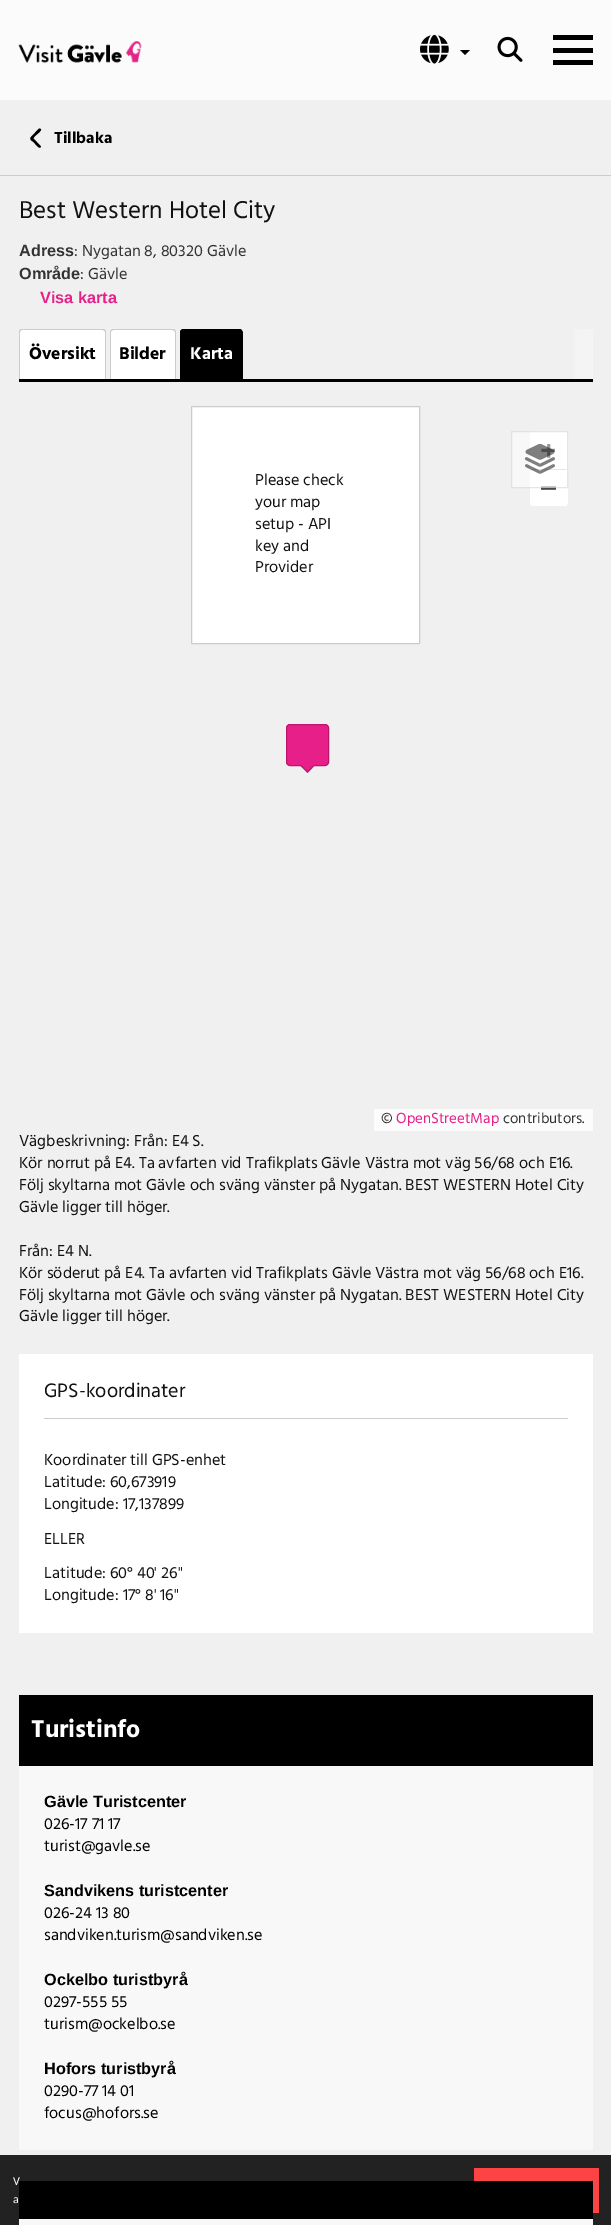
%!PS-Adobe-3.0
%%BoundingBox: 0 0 611 2225
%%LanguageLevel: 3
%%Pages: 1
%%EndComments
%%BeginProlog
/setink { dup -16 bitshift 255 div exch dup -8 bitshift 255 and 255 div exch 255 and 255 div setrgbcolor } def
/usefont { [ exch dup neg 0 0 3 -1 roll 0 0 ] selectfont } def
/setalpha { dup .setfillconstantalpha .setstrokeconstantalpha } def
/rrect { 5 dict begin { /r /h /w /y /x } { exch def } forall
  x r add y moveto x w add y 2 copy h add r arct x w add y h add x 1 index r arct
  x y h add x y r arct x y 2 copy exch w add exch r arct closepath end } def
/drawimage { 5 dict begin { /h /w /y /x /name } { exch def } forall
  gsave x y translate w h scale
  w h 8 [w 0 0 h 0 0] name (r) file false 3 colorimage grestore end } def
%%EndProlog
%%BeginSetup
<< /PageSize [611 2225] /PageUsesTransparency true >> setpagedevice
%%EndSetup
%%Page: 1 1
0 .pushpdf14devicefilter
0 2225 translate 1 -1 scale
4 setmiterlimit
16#F0F0F0 setink
0 0 611 2225 rectfill
16#FBFBFB setink
0 0 611 100 rectfill
(img1.raw) 18 41 124 22 drawimage
(img2.raw) 420 34 29 30 drawimage
16#000000 setink
460 50 moveto 470 50 lineto 465 55 lineto closepath fill
(img3.raw) 497 36 26 26 drawimage
[
    [553 35 40 5 16#000000]
    [553 48 40 5 16#000000]
    [553 60 40 5 16#000000]
    [0 175 611 1 16#CCCCCC]
] { aload pop setink rectfill } forall
16#000000 setink
31 137 moveto 39 128.5 lineto 39.5 128.5 40.5 128.5 41 129.5 curveto 41.5 131 36 135 35 136 curveto 34.5 136.5 32.5 140 31 139 curveto 30.5 137.5 lineto closepath fill
32.5 137.5 moveto 40.5 146 lineto 41 146.5 41 147.5 40 147.5 curveto 38.5 148.5 34.5 143 33.5 142 curveto 32.5 141.5 29.5 139.5 30.5 138 curveto 31.5 137.5 lineto closepath fill
/HindMadurai-Bold 16.25 usefont
54 143 moveto (Tillbaka) show
/HindMadurai-Regular 25 usefont
16#111111 setink
19 218 moveto (Best Western Hotel City) show
/LiberationSans-Bold 16.25 usefont
16#333333 setink
19 256 moveto (Adress) show
/HindMadurai-Regular 16.25 usefont
74 256 moveto (: Nygatan 8, 80320 Gävle) show
/LiberationSans-Bold 16.25 usefont
19 279 moveto (Område) show
/HindMadurai-Regular 16.25 usefont
80 279 moveto (: Gävle) show
/LiberationSans-Bold 16.25 usefont
16#E61F89 setink
40 303 moveto (Visa karta) show
16#000000 setink
19 379 574 3 rectfill
gsave
23 329 moveto 102 329 lineto 104 329 106 331 106 333 curveto 106 381 lineto 19 381 lineto 19 333 lineto 19 331 21 329 23 329 curveto closepath clip newpath
16#FFFFFF setink
19 330 87 49 rectfill
grestore
16#CCCCCC setink
22 329 moveto 102 329 lineto 105 329 106 330 106 332 curveto 106 381 lineto 19 381 lineto 19 332 lineto 19 330 20 329 22 329 curveto closepath 22 330 moveto 102 330 lineto 104 330 105 331 105 332 curveto 105 381 lineto 20 381 lineto 20 332 lineto 20 331 21 330 22 330 curveto closepath eofill
/HindMadurai-Bold 17.5 usefont
16#000000 setink
29 359 moveto (Översikt) show
19 379 87 2 rectfill
gsave
114 329 moveto 172 329 lineto 174 329 176 331 176 333 curveto 176 381 lineto 110 381 lineto 110 333 lineto 110 331 112 329 114 329 curveto closepath clip newpath
16#FFFFFF setink
110 330 66 49 rectfill
grestore
16#CCCCCC setink
114 329 moveto 172 329 lineto 175 329 176 330 176 332 curveto 176 381 lineto 110 381 lineto 110 332 lineto 110 330 112 329 114 329 curveto closepath 114 330 moveto 172 330 lineto 174 330 175 331 175 332 curveto 175 381 lineto 111 381 lineto 111 332 lineto 111 331 112 330 114 330 curveto closepath eofill
16#000000 setink
119 359 moveto (Bilder) show
110 379 66 2 rectfill
184 329 moveto 239 329 lineto 241 329 243 331 243 333 curveto 243 381 lineto 180 381 lineto 180 333 lineto 180 331 182 329 184 329 curveto closepath fill
184 329 moveto 239 329 lineto 241 329 242 330 242 332 curveto 242 381 lineto 180 381 lineto 180 332 lineto 180 330 182 329 184 329 curveto closepath 184 330 moveto 239 330 lineto 240 330 241 331 241 332 curveto 241 381 lineto 181 381 lineto 181 332 lineto 181 331 182 330 184 330 curveto closepath eofill
16#FFFFFF setink
190 359 moveto (Karta) show
gsave 574 329 moveto 593 329 lineto 593 379 lineto 574 379 lineto closepath clip newpath
<< /ShadingType 2 /ColorSpace /DeviceRGB /Coords [555 354 593 354] /Extend [true true] /Function << /FunctionType 2 /Domain [0 1] /C0 [0.941 0.941 0.941] /C1 [0.961 0.961 0.961] /N 1 >> >> shfill grestore
534 431.5 moveto 564 431.5 lineto 566 431.5 567.5 433 567.5 435 curveto 567.5 468.5 lineto 530.5 468.5 lineto 530.5 435 lineto 530.5 433 532 431.5 534 431.5 curveto closepath gsave fill grestore
stroke
530 469 moveto 568 469 lineto 568 502 lineto 568 504 566 506 564 506 curveto 534 506 lineto 532 506 530 504 530 502 curveto closepath fill
16#CCCCCC setink
567 469 moveto 530 469 lineto 531 470 lineto 566 470 lineto closepath fill
16#FFFFFF setink
567.5 502.5 moveto 567.5 469 lineto 566 470 lineto 566 502.5 lineto 566 503 566 504 565.5 504 curveto 566.5 505 lineto 567 504.5 567.5 503.5 567.5 502.5 curveto closepath fill
566.5 505 moveto 566 505.5 565 506 564 506 curveto 534 506 lineto 533 506 532 505.5 531 505 curveto 532 504.5 lineto 533.5 505.5 537.5 505 539 505 curveto 564 505 lineto 565.5 504 lineto closepath fill
531 470 moveto 531 503 lineto 532 504.5 lineto 531 505 lineto 530.5 504.5 530 503.5 530 502.5 curveto 530 469 lineto closepath fill
/DejaVuSansMono-Bold 28 usefont
16#333333 setink
540 497 moveto (−) show
0.5 setalpha
16#FFFFFF setink
511 431 57 57 rectfill
1 setalpha
(img4.raw) 525 444 30 30 drawimage
0.5 setalpha
16#CCCCCC setink
511.5 431.5 56 56 rectstroke
1 setalpha
16#FFFFFF setink
191.5 406.5 moveto 419.5 406.5 lineto 419.5 643.5 lineto 191.5 643.5 lineto closepath gsave fill grestore
16#CCCCCC setink
stroke
/HindMadurai-Regular 16.25 usefont
16#111111 setink
[
    [(Please check) 255 485]
    [(your map) 255 507]
    [(setup - API) 255 529]
    [(key and) 255 551]
    [(Provider) 255 572]
] { aload pop moveto show } forall
16#BD156E setink
304.5 770 moveto 297 762 lineto 318 762 lineto 307.5 773 lineto closepath fill
16#E61F89 setink
286.5 724.5 42 41 3.5 rrect gsave fill grestore
16#BD156E setink
stroke
16#E61F89 setink
316.5 762 moveto 307.5 771 lineto 298.5 762 lineto closepath fill
16#FCFCFC setink
374 1109 219 22 rectfill
/HindMadurai-Regular 15 usefont
16#333333 setink
381 1123 moveto (©) show
16#E61F89 setink
396 1123 moveto (OpenStreetMap) show
16#333333 setink
503 1123 moveto (contributors.) show
/HindMadurai-Regular 16.25 usefont
16#111111 setink
[
    [(Vägbeskrivning: Från: E4 S.) 19 1146]
    [(Kör norrut på E4. Ta avfarten vid Trafikplats Gävle Västra mot väg 56/68 och E16.) 19 1168]
    [(Följ skyltarna mot Gävle och sväng vänster på Nygatan. BEST WESTERN Hotel City) 19 1190]
    [(Gävle ligger till höger.) 19 1212]
    [(Från: E4 N.) 19 1256]
    [(Kör söderut på E4. Ta avfarten vid Trafikplats Gävle Västra mot väg 56/68 och E16.) 19 1278]
    [(Följ skyltarna mot Gävle och sväng vänster på Nygatan. BEST WESTERN Hotel City) 19 1300]
    [(Gävle ligger till höger.) 19 1321]
] { aload pop moveto show } forall
16#FFFFFF setink
19 1354 574 279 rectfill
16#CCCCCC setink
44 1418 524 1 rectfill
/HindMadurai-Regular 20 usefont
16#111111 setink
44 1397 moveto (GPS-koordinater) show
/HindMadurai-Regular 16.25 usefont
[
    [(Koordinater till GPS-enhet) 44 1465]
    [(Latitude: 60,673919) 44 1487]
    [(Longitude: 17,137899) 44 1509]
    [(ELLER) 44 1544]
    [(Latitude: 60° 40' 26") 44 1578]
    [(Longitude: 17° 8' 16") 44 1600]
] { aload pop moveto show } forall
16#000000 setink
19 1695 574 71 rectfill
/HindMadurai-Bold 25 usefont
16#FFFFFF setink
31 1737 moveto (Turistinfo) show
16#F8F8F8 setink
19 1766 574 384 rectfill
/LiberationSans-Bold 16.25 usefont
16#000000 setink
44 1807 moveto (Gävle Turistcenter) show
/HindMadurai-Regular 16.25 usefont
44 1829 moveto (026-17 71 17) show
44 1851 moveto (turist@gavle.se) show
/LiberationSans-Bold 16.25 usefont
44 1896 moveto (Sandvikens turistcenter) show
/HindMadurai-Regular 16.25 usefont
44 1918 moveto (026-24 13 80) show
44 1940 moveto (sandviken.turism@sandviken.se) show
/LiberationSans-Bold 16.25 usefont
44 1985 moveto (Ockelbo turistbyrå) show
/HindMadurai-Regular 16.25 usefont
44 2007 moveto (0297-555 55) show
44 2029 moveto (turism@ockelbo.se) show
/LiberationSans-Bold 16.25 usefont
44 2074 moveto (Hofors turistbyrå) show
/HindMadurai-Regular 16.25 usefont
44 2096 moveto (0290-77 14 01) show
44 2118 moveto (focus@hofors.se) show
16#222222 setink
0 2155 611 70 rectfill
/Carlito-Regular 12 usefont
16#FFFFFF setink
13 2185 moveto (V) show
[
    [474 2168 125 45 16#FD4444]
    [19 2181 574 38 16#000000]
    [19 2219 574 6 16#F8F8F8]
] { aload pop setink rectfill } forall
16#FFFFFF setink
13 2203 moveto (a) show
.poppdf14devicefilter showpage
%%EOF
